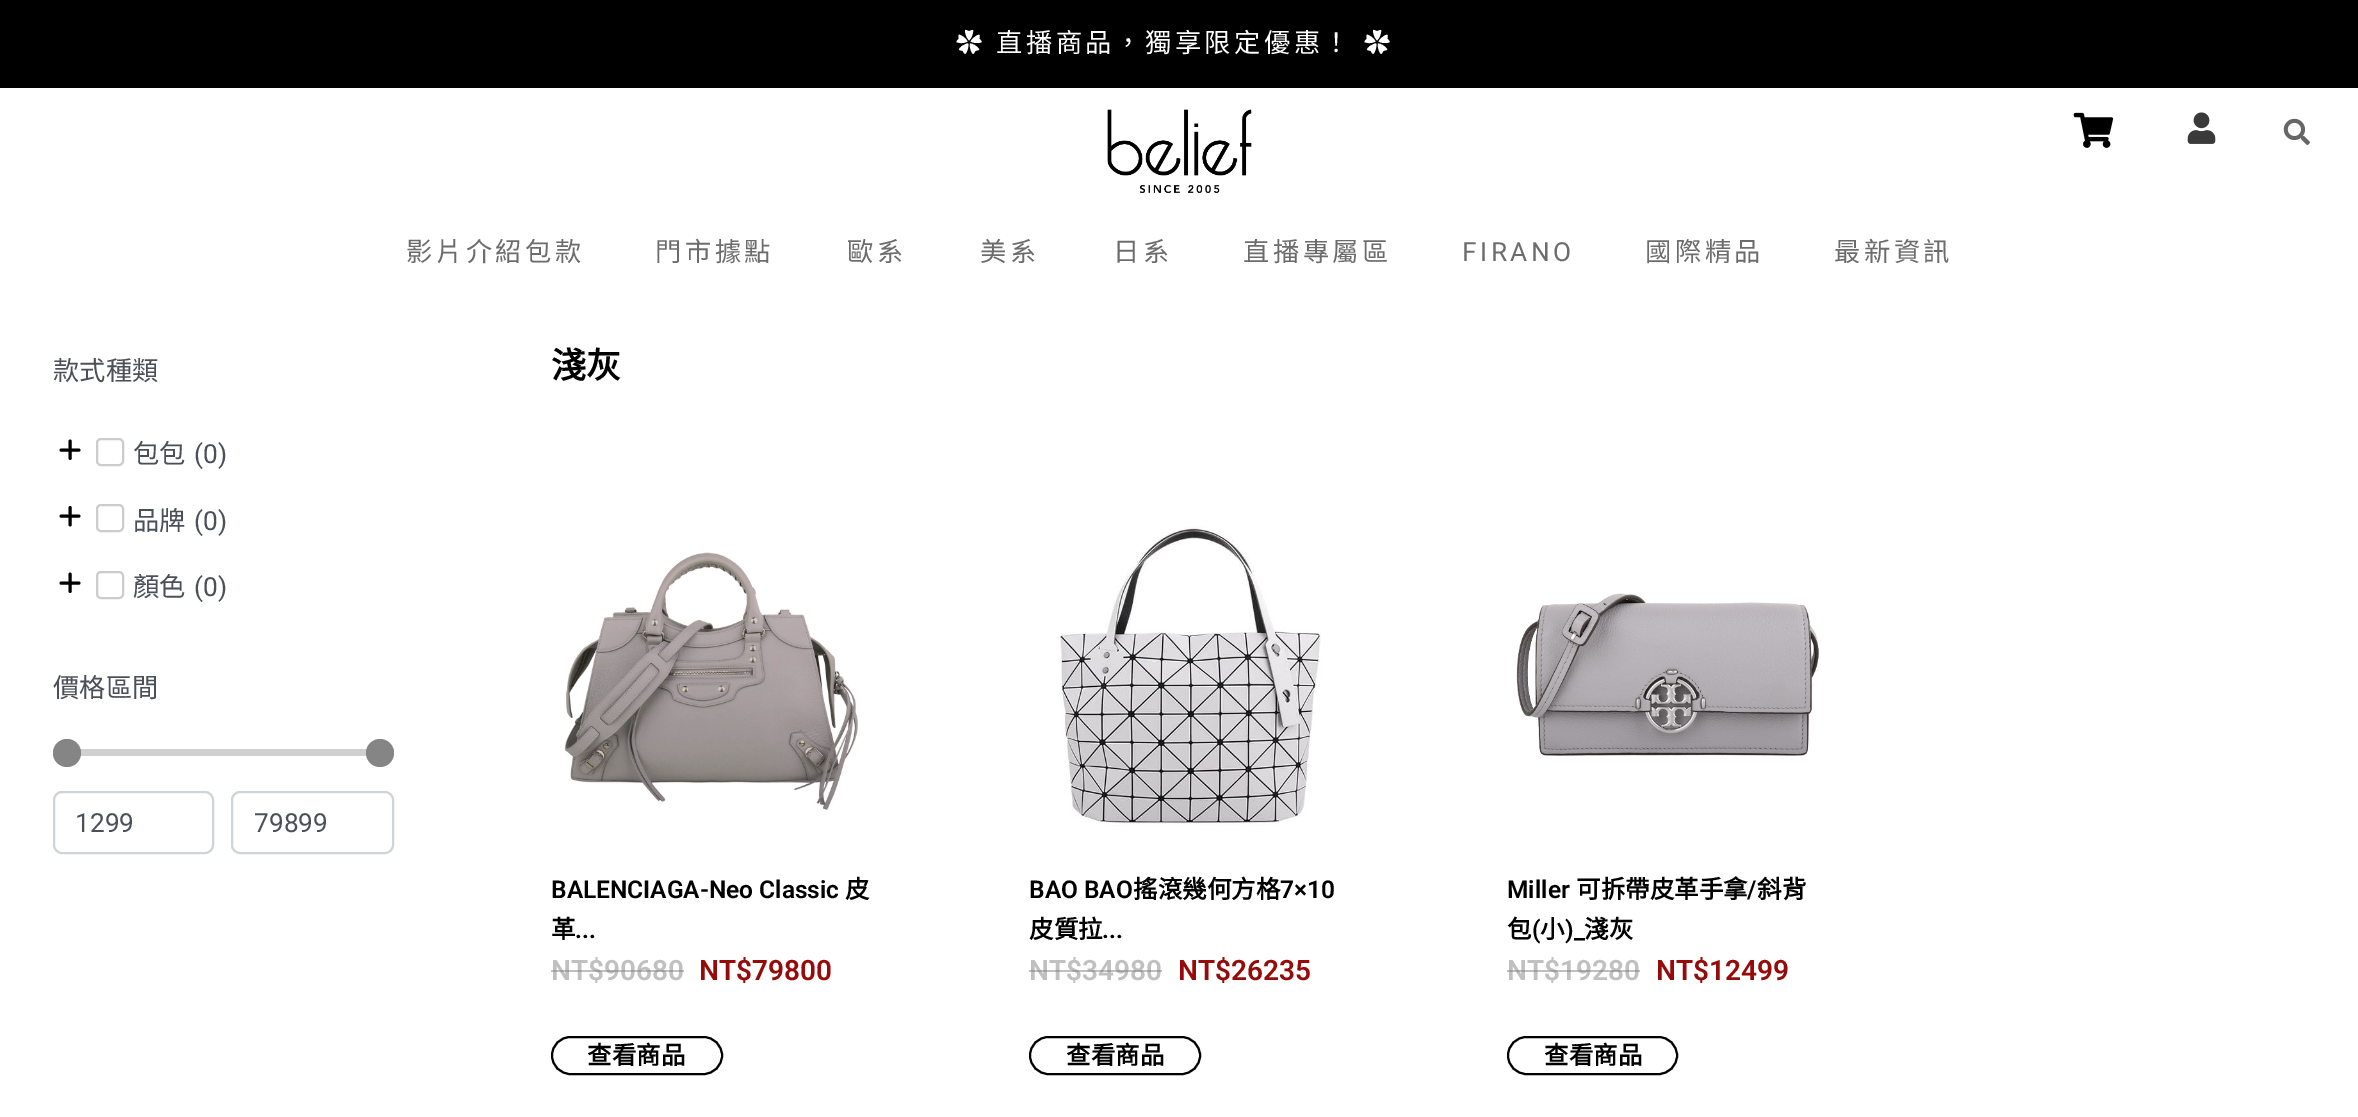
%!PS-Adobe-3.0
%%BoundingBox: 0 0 2358 1117
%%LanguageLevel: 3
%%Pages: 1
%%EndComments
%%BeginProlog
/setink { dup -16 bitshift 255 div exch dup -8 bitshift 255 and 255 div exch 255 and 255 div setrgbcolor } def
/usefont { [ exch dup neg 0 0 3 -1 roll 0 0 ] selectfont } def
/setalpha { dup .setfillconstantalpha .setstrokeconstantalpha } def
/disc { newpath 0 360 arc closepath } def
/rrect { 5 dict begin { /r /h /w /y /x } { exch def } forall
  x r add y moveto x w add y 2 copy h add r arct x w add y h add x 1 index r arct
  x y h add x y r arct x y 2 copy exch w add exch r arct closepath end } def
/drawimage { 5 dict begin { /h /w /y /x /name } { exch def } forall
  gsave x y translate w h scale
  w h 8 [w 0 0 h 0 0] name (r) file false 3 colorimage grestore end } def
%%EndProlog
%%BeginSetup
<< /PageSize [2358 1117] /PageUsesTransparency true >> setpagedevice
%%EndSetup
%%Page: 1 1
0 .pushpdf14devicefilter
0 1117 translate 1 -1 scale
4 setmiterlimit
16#FFFFFF setink
0 0 2358 1117 rectfill
16#000000 setink
0 0 2358 88 rectfill
/NotoSansCJKTC-Regular 26.25 usefont
16#FFFFFF setink
956 52 moveto 1 0 32 3.5 0 (✿ 直播商品，獨享限定優惠！ ✿) awidthshow
(img1.raw) 1107 109 145 84 drawimage
(img2.raw) 2073 112 41 36 drawimage
(img3.raw) 2187 112 29 32 drawimage
(img4.raw) 2283 118 27 27 drawimage
16#6C6C6C setink
406 261 moveto 3.5 0 (影片介紹包款) ashow
655 261 moveto 3.5 0 (門市據點) ashow
847 261 moveto 3.5 0 (歐系) ashow
980 261 moveto 3.5 0 (美系) ashow
1113 261 moveto 3.5 0 (日系) ashow
1243 261 moveto 3.5 0 (直播專屬區) ashow
/Roboto-Regular 26.25 usefont
1462 261 moveto 3.5 0 (FIRANO) ashow
/NotoSansCJKTC-Regular 26.25 usefont
1645 261 moveto 3.5 0 (國際精品) ashow
1834 261 moveto 3.5 0 (最新資訊) ashow
16#4B4F58 setink
53 380 moveto (款式種類) show
16#000000 setink
2.9 setlinewidth
1 setlinecap
1 setlinejoin
61 450 moveto 79 450 lineto 70 441 moveto 70 458.5 lineto stroke
16#CCCCCC setink
2 setlinewidth
0 setlinecap
0 setlinejoin
97 439 26 26 4 rrect stroke
16#4B4F58 setink
133 463 moveto (包包) show
/Roboto-Regular 26.25 usefont
194 463 moveto (\(0\)) show
16#000000 setink
2.9 setlinewidth
1 setlinecap
1 setlinejoin
61 516 moveto 79 516 lineto 70 507.5 moveto 70 525 lineto stroke
16#CCCCCC setink
2 setlinewidth
0 setlinecap
0 setlinejoin
97 505 26 26 4 rrect stroke
/NotoSansCJKTC-Regular 26.25 usefont
16#4B4F58 setink
133 530 moveto (品牌) show
/Roboto-Regular 26.25 usefont
194 530 moveto (\(0\)) show
16#000000 setink
2.9 setlinewidth
1 setlinecap
1 setlinejoin
61 583 moveto 79 583 lineto 70 574 moveto 70 591.5 lineto stroke
16#CCCCCC setink
2 setlinewidth
0 setlinecap
0 setlinejoin
97 572 26 26 4 rrect stroke
/NotoSansCJKTC-Regular 26.25 usefont
16#4B4F58 setink
133 596 moveto (顏色) show
/Roboto-Regular 26.25 usefont
194 596 moveto (\(0\)) show
/NotoSansCJKTC-Regular 26.25 usefont
53 697 moveto (價格區間) show
16#D0D0D0 setink
53 749 341 7 rectfill
16#858585 setink
67 753 14 disc fill
380 753 14 disc fill
16#CED4DA setink
54 792 159 61 8 rrect stroke
/Roboto-Regular 26.25 usefont
16#4B4F58 setink
75 832 moveto (1299) show
16#CED4DA setink
232 792 161 61 8 rrect stroke
16#4B4F58 setink
254 832 moveto (79899) show
/NotoSansCJKTC-Bold 35 usefont
16#000000 setink
551 378 moveto (淺灰) show
(img5.raw) 564 552 295 258 drawimage
/Roboto-SemiBold 24.5 usefont
551 898 moveto (BALENCIAGA-Neo Classic) show
/NotoSansCJKTC-Bold 24.5 usefont
845 898 moveto (皮) show
551 938 moveto (革) show
/Roboto-SemiBold 24.5 usefont
575 938 moveto (...) show
/Roboto-SemiBold 28 usefont
16#C0C0C0 setink
551 980 moveto (NT$90680) show
0.47 setalpha
16#7A7A7A setink
551 970 53 2 rectfill
604 970 80 2 rectfill
1 setalpha
16#960A0A setink
699 980 moveto (NT$79800) show
16#000000 setink
552 1037 170 37 18.5 rrect stroke
/NotoSansCJKTC-Bold 24.5 usefont
587 1064 moveto (查看商品) show
(img6.raw) 1060 526 261 300 drawimage
/Roboto-SemiBold 24.5 usefont
1029 898 moveto (BAO BAO) show
/NotoSansCJKTC-Bold 24.5 usefont
1133 898 moveto (搖滾幾何方格) show
/Roboto-SemiBold 24.5 usefont
1280 898 moveto (7×10) show
/NotoSansCJKTC-Bold 24.5 usefont
1029 938 moveto (皮質拉) show
/Roboto-SemiBold 24.5 usefont
1102 938 moveto (...) show
/Roboto-SemiBold 28 usefont
16#C0C0C0 setink
1029 980 moveto (NT$34980) show
0.47 setalpha
16#7A7A7A setink
1029 970 53 2 rectfill
1082 970 80 2 rectfill
1 setalpha
16#960A0A setink
1178 980 moveto (NT$26235) show
16#000000 setink
1030 1037 170 37 18.5 rrect stroke
/NotoSansCJKTC-Bold 24.5 usefont
1066 1064 moveto (查看商品) show
(img7.raw) 1516 593 303 163 drawimage
/Roboto-SemiBold 24.5 usefont
1507 898 moveto (Miller) show
/NotoSansCJKTC-Bold 24.5 usefont
1576 898 moveto (可拆帶皮革手拿) show
/Roboto-SemiBold 24.5 usefont
1747 898 moveto (/) show
/NotoSansCJKTC-Bold 24.5 usefont
1757 898 moveto (斜背) show
1507 938 moveto (包) show
/Roboto-SemiBold 24.5 usefont
1532 938 moveto (\() show
/NotoSansCJKTC-Bold 24.5 usefont
1540 938 moveto (小) show
/Roboto-SemiBold 24.5 usefont
1565 938 moveto (\)_) show
/NotoSansCJKTC-Bold 24.5 usefont
1584 938 moveto (淺灰) show
/Roboto-SemiBold 28 usefont
16#C0C0C0 setink
1507 980 moveto (NT$19280) show
0.47 setalpha
16#7A7A7A setink
1507 970 54 2 rectfill
1561 970 79 2 rectfill
1 setalpha
16#960A0A setink
1656 980 moveto (NT$12499) show
16#000000 setink
1508 1037 169 37 18.5 rrect stroke
/NotoSansCJKTC-Bold 24.5 usefont
1544 1064 moveto (查看商品) show
.poppdf14devicefilter showpage
%%EOF
